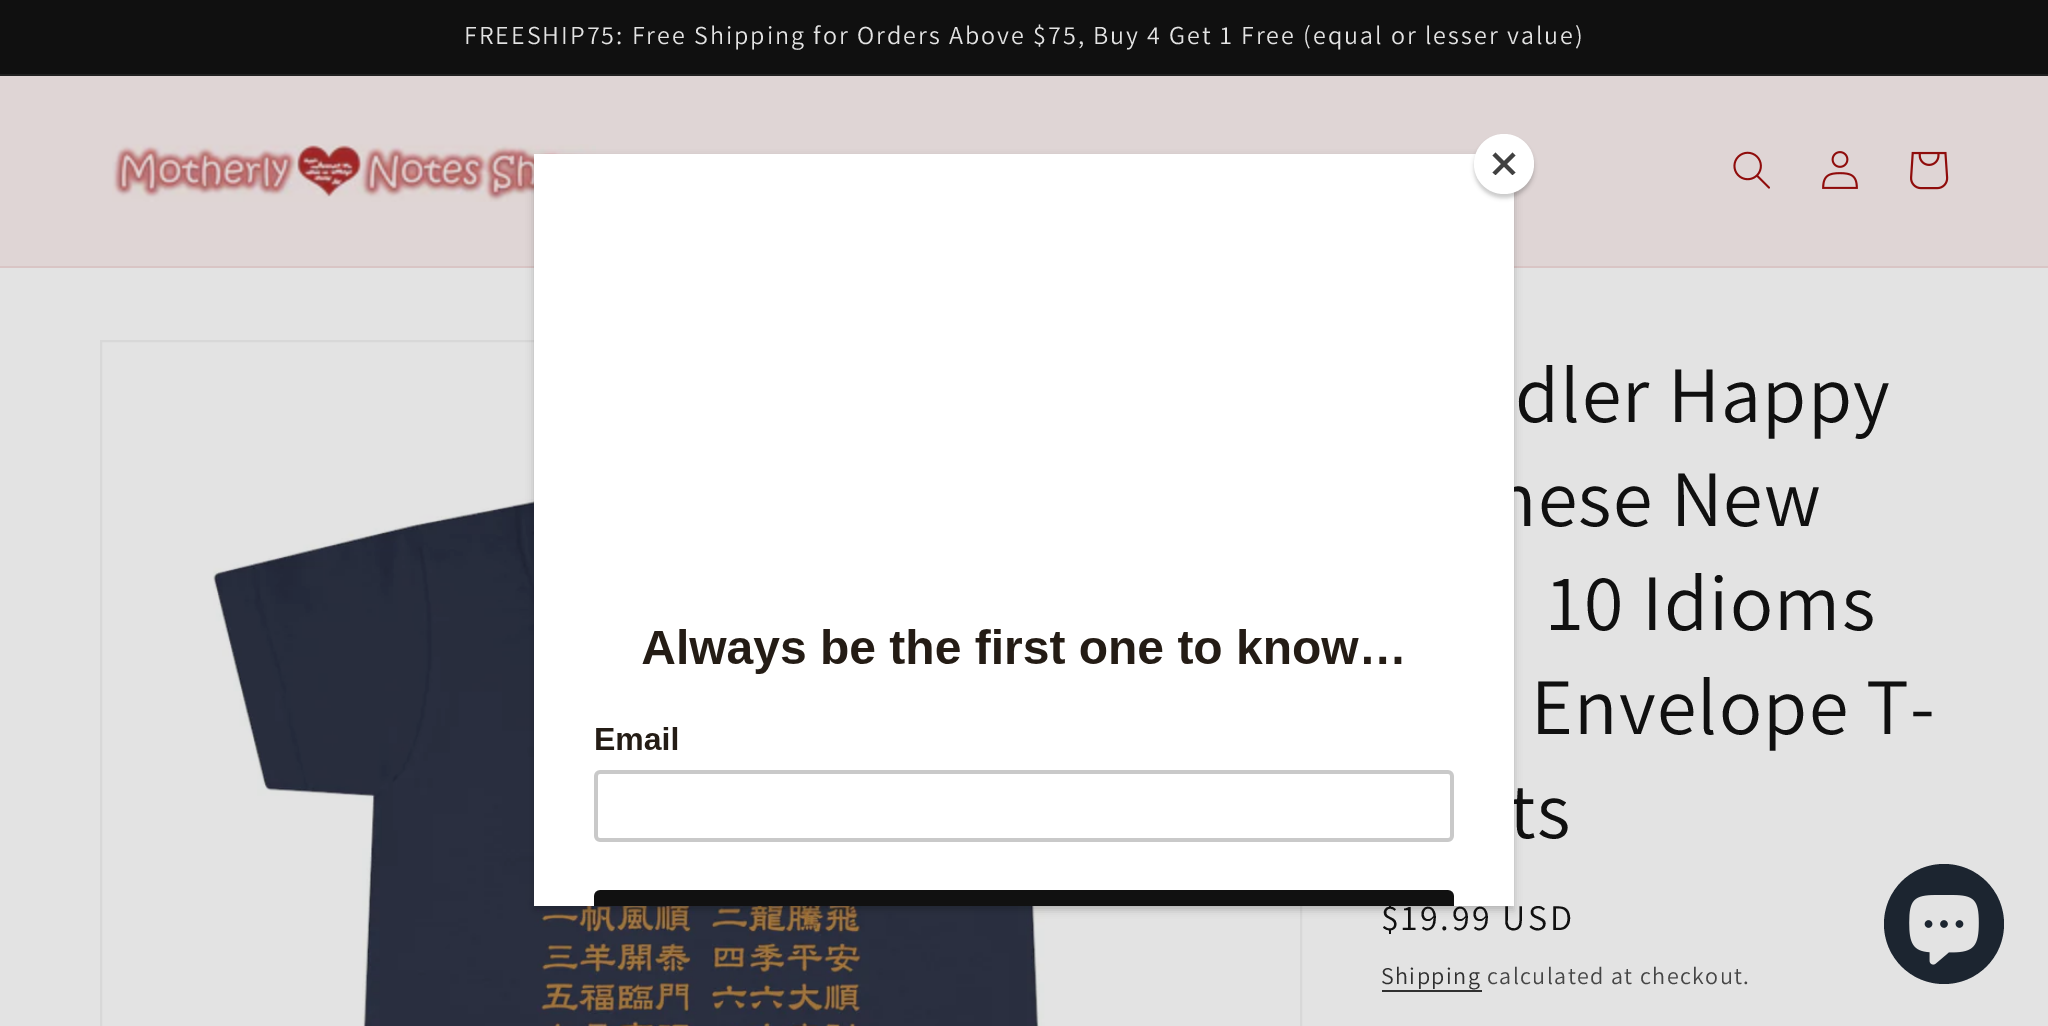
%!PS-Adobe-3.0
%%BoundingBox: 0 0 2048 1026
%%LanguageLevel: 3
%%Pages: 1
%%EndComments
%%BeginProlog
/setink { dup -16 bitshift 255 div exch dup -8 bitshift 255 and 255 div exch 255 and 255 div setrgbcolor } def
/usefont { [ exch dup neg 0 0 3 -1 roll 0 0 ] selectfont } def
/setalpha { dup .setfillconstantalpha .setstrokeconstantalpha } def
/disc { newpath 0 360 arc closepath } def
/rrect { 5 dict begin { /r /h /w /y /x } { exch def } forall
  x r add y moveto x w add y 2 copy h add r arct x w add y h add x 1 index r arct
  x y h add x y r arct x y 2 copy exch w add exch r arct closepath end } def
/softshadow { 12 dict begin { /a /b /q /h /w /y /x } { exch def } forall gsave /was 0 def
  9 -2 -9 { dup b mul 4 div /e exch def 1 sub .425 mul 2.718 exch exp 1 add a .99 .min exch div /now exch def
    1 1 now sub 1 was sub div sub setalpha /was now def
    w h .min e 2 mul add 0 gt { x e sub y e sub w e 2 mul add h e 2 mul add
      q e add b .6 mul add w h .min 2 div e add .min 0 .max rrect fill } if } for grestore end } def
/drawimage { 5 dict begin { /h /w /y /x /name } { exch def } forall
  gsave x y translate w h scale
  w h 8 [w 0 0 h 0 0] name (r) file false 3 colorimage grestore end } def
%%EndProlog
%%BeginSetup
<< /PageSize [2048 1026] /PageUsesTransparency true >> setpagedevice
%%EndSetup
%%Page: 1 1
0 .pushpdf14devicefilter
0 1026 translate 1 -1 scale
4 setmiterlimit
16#E3E3E3 setink
0 0 2048 1026 rectfill
16#101010 setink
0 0 2048 74 rectfill
16#212121 setink
0 74 2048 2 rectfill
/Assistant-Regular 26 usefont
16#E3E3E3 setink
464 44 moveto 2 0 (FREESHIP75: Free Shipping for Orders Above $75, Buy 4 Get 1 Free \(equal or lesser value\)) ashow
16#DFD5D5 setink
0 76 2048 190 rectfill
16#D9C5C5 setink
0 266 2048 2 rectfill
(img1.raw) 112 144 484 58 drawimage
(img2.raw) 1733 151 37 38 drawimage
(img3.raw) 1822 151 36 38 drawimage
(img4.raw) 1910 151 39 39 drawimage
16#D8D8D8 setink
2 setlinewidth
101 341 1200 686 rectstroke
(img6.raw) 213 494 980 532 drawimage
16#000000 setink
534 158 980 752 0 4 0.2 softshadow
/Assistant-Regular 80 usefont
16#101010 setink
1493 526 moveto 1.25 0 (nese New) ashow
1509 838 moveto 1.25 0 (ts) ashow
/Assistant-Regular 36 usefont
1381 930 moveto 2.6 0 ($19.99 USD) ashow
(img5.raw) 534 154 980 752 drawimage
16#000000 setink
1474 138 60 60 30 2 0.2 softshadow
16#FFFFFF setink
1504 164 30 disc fill
16#414141 setink
1512.5 152.5 moveto 1515.5 155.5 lineto 1495.5 175 lineto 1492.5 172.5 lineto closepath fill
1492.5 155.5 moveto 1495.5 152.5 lineto 1515.5 172.5 lineto 1512.5 175 lineto closepath fill
/Assistant-Regular 80 usefont
16#101010 setink
1515 422 moveto 1.25 0 (dler Happy) ashow
1547 630 moveto 1.25 0 (10 Idioms) ashow
1531 734 moveto 1.25 0 (Envelope T-) ashow
/Assistant-Regular 24 usefont
16#303030 setink
1381 984 moveto 1.4 0 (Shipping) ashow
1382 990 100 2 rectfill
16#454545 setink
1487 984 moveto 1.4 0 (calculated at checkout.) ashow
16#1C2530 setink
1944 924 60 disc fill
(img7.raw) 1909 895 70 70 drawimage
.poppdf14devicefilter showpage
%%EOF
